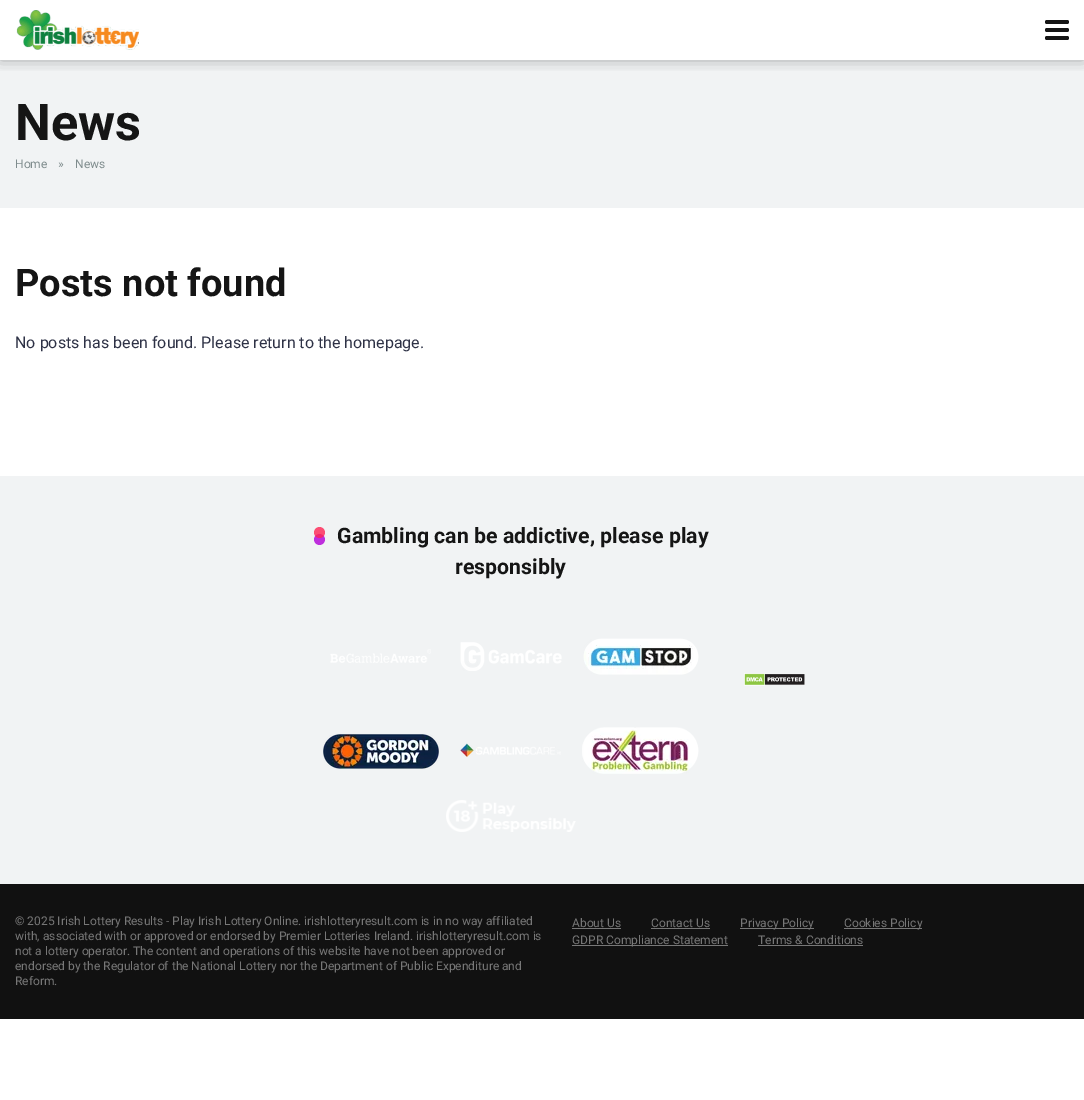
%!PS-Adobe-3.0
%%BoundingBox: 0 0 1084 1100
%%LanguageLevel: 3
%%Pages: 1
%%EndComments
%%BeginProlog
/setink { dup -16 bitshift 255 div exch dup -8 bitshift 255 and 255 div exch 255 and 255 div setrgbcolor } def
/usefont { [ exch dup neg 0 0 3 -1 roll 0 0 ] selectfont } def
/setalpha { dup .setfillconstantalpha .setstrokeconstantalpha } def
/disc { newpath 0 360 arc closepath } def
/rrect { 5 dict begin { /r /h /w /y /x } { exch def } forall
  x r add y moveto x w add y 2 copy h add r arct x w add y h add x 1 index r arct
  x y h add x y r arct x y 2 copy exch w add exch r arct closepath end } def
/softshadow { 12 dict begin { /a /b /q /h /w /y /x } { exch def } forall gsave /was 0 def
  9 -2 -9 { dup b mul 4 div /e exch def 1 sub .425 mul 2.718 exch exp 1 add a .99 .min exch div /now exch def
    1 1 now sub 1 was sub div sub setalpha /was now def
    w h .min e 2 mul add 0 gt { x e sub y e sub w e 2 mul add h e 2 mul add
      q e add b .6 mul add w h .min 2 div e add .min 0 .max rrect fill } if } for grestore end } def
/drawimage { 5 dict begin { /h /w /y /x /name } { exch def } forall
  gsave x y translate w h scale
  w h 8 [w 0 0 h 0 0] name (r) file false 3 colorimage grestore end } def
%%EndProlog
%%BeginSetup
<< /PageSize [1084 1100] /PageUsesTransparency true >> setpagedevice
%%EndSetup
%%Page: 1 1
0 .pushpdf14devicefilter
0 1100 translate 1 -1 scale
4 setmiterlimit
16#FFFFFF setink
0 0 1084 1100 rectfill
16#F1F3F4 setink
0 60 1084 148 rectfill
gsave
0 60 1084 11 rectclip
16#000000 setink
0 0 1084 60 0 7.5 0.3 softshadow
grestore
(img1.raw) 16 10 123 40 drawimage
16#151515 setink
1045 20 24 4 2 rrect fill
1045 28 24 4 2 rrect fill
1045 36 24 4 2 rrect fill
/Roboto-Bold 50.5 usefont
15 140 moveto (News) show
/Roboto-Regular 12 usefont
16#7F8C8D setink
[
    [(Home) 15 168]
    [(») 58 168]
    [(News) 75 168]
] { aload pop moveto show } forall
/Roboto-Bold 38 usefont
16#151515 setink
15 296 moveto (Posts not found) show
/Roboto-Regular 16 usefont
16#2E3246 setink
15 348 moveto (No posts has been found. Please return to the homepage.) show
16#F1F3F4 setink
0 476 1084 408 rectfill
16#BE2EDD setink
319.5 539.5 5.5 disc fill
0.8 setalpha
16#FF2453 setink
319.5 532.5 5.5 disc fill
/Roboto-Bold 21.3 usefont
1 setalpha
16#151515 setink
337 543 moveto (Gambling can be addictive, please play) show
455 574 moveto (responsibly) show
(img2.raw) 330 649 101 14 drawimage
(img3.raw) 460 642 102 29 drawimage
(img4.raw) 583 638 116 37 drawimage
(img5.raw) 323 734 116 35 drawimage
(img6.raw) 460 743 101 14 drawimage
(img7.raw) 582 727 117 47 drawimage
(img8.raw) 446 800 130 32 drawimage
(img9.raw) 744 673 61 13 drawimage
16#111111 setink
0 884 1084 135 rectfill
/Roboto-Regular 12 usefont
16#777777 setink
[
    [(© 2025 Irish Lottery Results - Play Irish Lottery Online. irishlotteryresult.com is in no way affiliated) 15 925]
    [(with, associated with or approved or endorsed by Premier Lotteries Ireland. irishlotteryresult.com is) 15 940]
    [(not a lottery operator. The content and operations of this website have not been approved or) 15 955]
    [(endorsed by the Regulator of the National Lottery nor the Department of Public Expenditure and) 15 970]
    [(Reform.) 15 985]
    [(About Us) 572 927]
] { aload pop moveto show } forall
572 928 49 1 rectfill
651 927 moveto (Contact Us) show
651 928 59 1 rectfill
740 928 74 1 rectfill
740 927 moveto (Privacy Policy) show
844 928 78 1 rectfill
844 927 moveto (Cookies Policy) show
572 945 156 1 rectfill
572 944 moveto (GDPR Compliance Statement) show
758 944 moveto (Terms & Conditions) show
758 945 105 1 rectfill
.poppdf14devicefilter showpage
%%EOF
